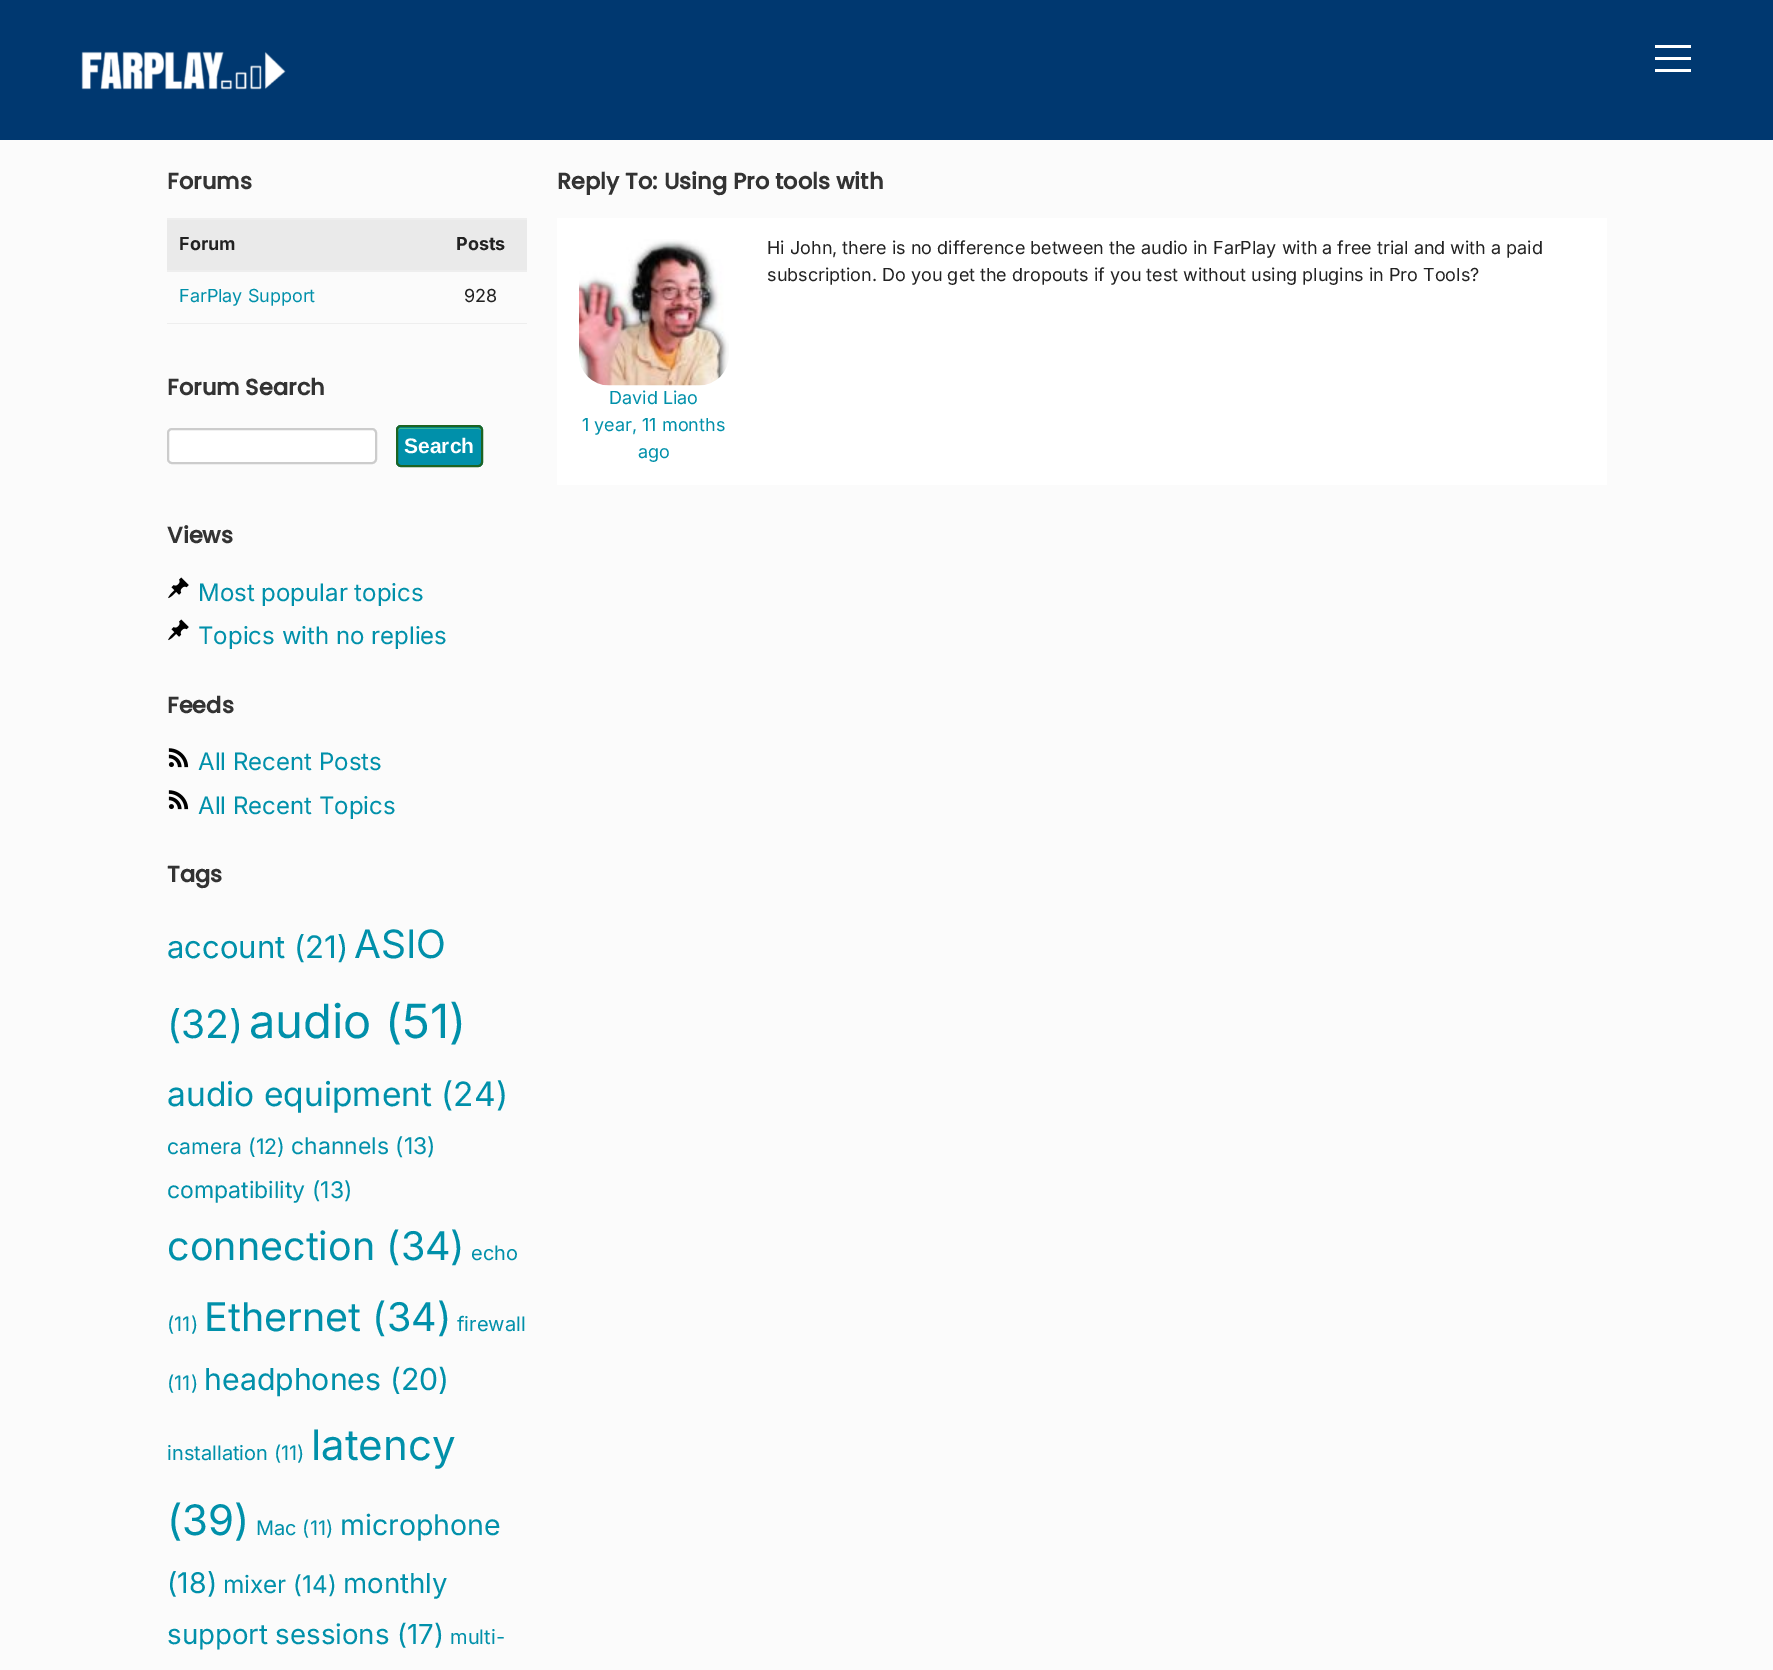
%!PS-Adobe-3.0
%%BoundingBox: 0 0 1773 1670
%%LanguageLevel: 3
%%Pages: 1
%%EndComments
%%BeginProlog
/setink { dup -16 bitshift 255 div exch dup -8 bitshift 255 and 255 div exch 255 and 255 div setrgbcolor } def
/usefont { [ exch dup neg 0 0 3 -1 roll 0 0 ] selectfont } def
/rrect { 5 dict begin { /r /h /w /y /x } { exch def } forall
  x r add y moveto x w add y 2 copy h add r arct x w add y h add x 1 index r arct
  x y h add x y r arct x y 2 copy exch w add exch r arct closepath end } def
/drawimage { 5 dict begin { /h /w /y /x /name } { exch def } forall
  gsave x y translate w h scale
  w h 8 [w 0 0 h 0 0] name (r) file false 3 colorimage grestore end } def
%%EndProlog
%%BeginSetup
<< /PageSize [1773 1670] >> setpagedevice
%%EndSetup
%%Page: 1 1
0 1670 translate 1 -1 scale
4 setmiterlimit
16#FBFBFB setink
0 0 1773 1670 rectfill
16#003870 setink
0 0 1773 140 rectfill
(img1.raw) 81 51 205 39 drawimage
[
    [1655 45 36 3 16#FFFFFF]
    [1655 57 36 3 16#FFFFFF]
    [1655 69 36 3 16#FFFFFF]
] { aload pop setink rectfill } forall
/Poppins-Bold 22.5 usefont
16#333333 setink
167 189 moveto (Forums) show
16#EAEAEA setink
167 220 360 50 rectfill
16#EEEEEE setink
167 218 360 2 rectfill
/Inter-Bold 18 usefont
16#222222 setink
179 250 moveto (Forum) show
456 250 moveto (Posts) show
16#EEEEEE setink
167 323 360 1 rectfill
167 270 360 2 rectfill
/Inter-Regular 18 usefont
16#0090AA setink
179 302 moveto (FarPlay Support) show
16#222222 setink
464 302 moveto (928) show
/Poppins-Bold 22.5 usefont
16#333333 setink
167 395 moveto (Forum Search) show
16#FFFFFF setink
168 429 208 34 4 rrect gsave fill grestore
16#CCCCCC setink
2 setlinewidth
stroke
16#0090AA setink
396 425 87 42 5 rrect fill
16#3CBB91 setink
400 429 moveto 478 429 lineto 480 429 482 430 482 432 curveto 482 429 lineto 482 427 481 426 479 426 curveto 401 426 lineto 399 426 398 427 398 429 curveto 398 432 lineto 398 430 399 429 400 429 curveto closepath fill
16#0090AA setink
400 428 moveto 478 428 lineto 480 428 482 429 482 430 curveto 482 423 470 426 466 426 curveto 414 426 lineto 410 426 398 423 398 430 curveto 398 429 399 428 400 428 curveto closepath fill
16#1D6422 setink
397 426 85 40 4 rrect stroke
/LiberationSans-Bold 21 usefont
16#FFFFFF setink
404 453 moveto (Search) show
/Poppins-Bold 22.5 usefont
16#333333 setink
167 543 moveto (Views) show
(img2.raw) 168 577 21 22 drawimage
/Inter-Regular 24 usefont
16#0090AA setink
198 601 moveto (Most popular topics) show
(img2.raw) 168 619 21 22 drawimage
198 644 moveto (Topics with no replies) show
/Poppins-Bold 22.5 usefont
16#333333 setink
167 713 moveto (Feeds) show
(img3.raw) 168 748 21 20 drawimage
/Inter-Regular 24 usefont
16#0090AA setink
198 770 moveto (All Recent Posts) show
(img3.raw) 168 790 21 20 drawimage
198 814 moveto (All Recent Topics) show
/Poppins-Bold 22.5 usefont
16#333333 setink
167 882 moveto (Tags) show
/Inter-Regular 31 usefont
16#0090AA setink
167 958 moveto (account \(21\)) show
/Inter-Regular 39 usefont
354 958 moveto (ASIO) show
167 1038 moveto (\(32\)) show
/Inter-Regular 47 usefont
249 1038 moveto (audio \(51\)) show
/Inter-Regular 33.5 usefont
167 1106 moveto (audio equipment \(24\)) show
/Inter-Regular 21.25 usefont
167 1154 moveto (camera \(12\)) show
/Inter-Regular 23 usefont
291 1154 moveto (channels \(13\)) show
167 1198 moveto (compatibility \(13\)) show
/Inter-Regular 39.5 usefont
167 1260 moveto (connection \(34\)) show
/Inter-Regular 20 usefont
471 1260 moveto (echo) show
167 1331 moveto (\(11\)) show
/Inter-Regular 39.5 usefont
204 1331 moveto (Ethernet \(34\)) show
/Inter-Regular 20 usefont
457 1331 moveto (firewall) show
167 1390 moveto (\(11\)) show
/Inter-Regular 30.25 usefont
204 1390 moveto (headphones \(20\)) show
/Inter-Regular 20 usefont
167 1460 moveto (installation \(11\)) show
/Inter-Regular 42 usefont
311 1460 moveto (latency) show
167 1535 moveto (\(39\)) show
/Inter-Regular 20 usefont
256 1535 moveto (Mac \(11\)) show
/Inter-Regular 28.5 usefont
340 1535 moveto (microphone) show
167 1593 moveto (\(18\)) show
/Inter-Regular 24.25 usefont
223 1593 moveto (mixer \(14\)) show
/Inter-Regular 27.6 usefont
343 1593 moveto (monthly) show
167 1644 moveto (support sessions \(17\)) show
/Inter-Regular 20 usefont
450 1644 moveto (multi-) show
/Poppins-Bold 22.5 usefont
16#333333 setink
557 189 moveto (Reply To: Using Pro tools with) show
16#FFFFFF setink
557 218 1050 267 rectfill
/Inter-Regular 18 usefont
16#222222 setink
767 254 moveto (Hi John, there is no difference between the audio in FarPlay with a free trial and with a paid) show
767 281 moveto (subscription. Do you get the dropouts if you test without using plugins in Pro Tools?) show
(img4.raw) 579 239 150 147 drawimage
16#0090AA setink
[
    [(David Liao) 609 404]
    [(1 year, 11 months) 582 431]
    [(ago) 638 458]
] { aload pop moveto show } forall
showpage
%%EOF
